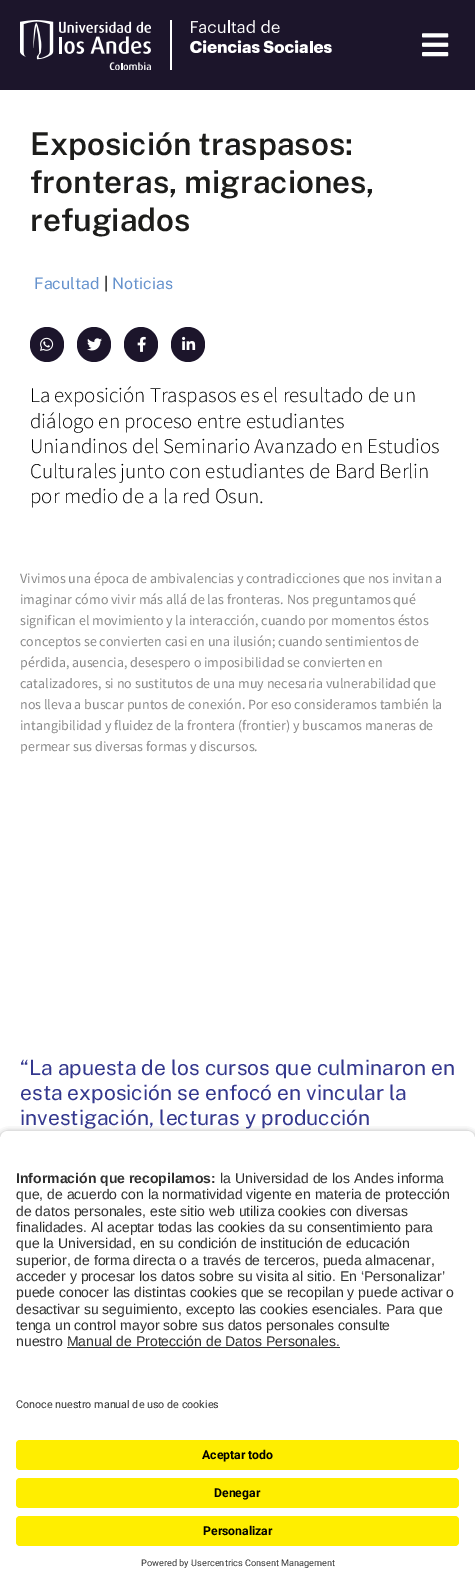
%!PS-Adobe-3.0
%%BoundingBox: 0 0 475 1585
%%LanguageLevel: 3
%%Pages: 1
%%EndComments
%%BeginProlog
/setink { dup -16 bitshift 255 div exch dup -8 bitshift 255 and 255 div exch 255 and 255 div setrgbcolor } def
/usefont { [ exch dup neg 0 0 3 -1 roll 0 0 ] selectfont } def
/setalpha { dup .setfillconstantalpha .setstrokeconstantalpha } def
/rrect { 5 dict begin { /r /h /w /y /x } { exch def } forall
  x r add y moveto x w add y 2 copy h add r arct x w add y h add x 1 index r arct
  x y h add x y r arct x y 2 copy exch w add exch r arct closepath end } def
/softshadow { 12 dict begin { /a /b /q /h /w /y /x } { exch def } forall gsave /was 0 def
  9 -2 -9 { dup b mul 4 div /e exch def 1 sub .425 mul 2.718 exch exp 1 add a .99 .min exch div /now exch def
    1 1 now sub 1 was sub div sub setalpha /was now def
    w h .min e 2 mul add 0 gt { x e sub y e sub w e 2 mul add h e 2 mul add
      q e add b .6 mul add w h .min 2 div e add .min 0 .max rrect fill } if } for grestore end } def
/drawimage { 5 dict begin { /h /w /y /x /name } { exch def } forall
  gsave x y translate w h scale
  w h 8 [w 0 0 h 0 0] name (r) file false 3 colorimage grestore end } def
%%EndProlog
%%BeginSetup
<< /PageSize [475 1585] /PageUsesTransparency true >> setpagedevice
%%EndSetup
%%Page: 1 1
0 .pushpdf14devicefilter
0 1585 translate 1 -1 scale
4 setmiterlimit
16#FFFFFF setink
0 0 475 1585 rectfill
16#1C152B setink
0 0 475 90 rectfill
16#FFFFFF setink
170 20 2 50 rectfill
(img1.raw) 20 20 131 50 drawimage
(img2.raw) 190 20 142 33 drawimage
(img3.raw) 422 33 27 24 drawimage
/PublicSans-SemiBold 31.5 usefont
16#1D1D1B setink
[
    [(Exposición traspasos:) 30 155]
    [(fronteras, migraciones,) 30 193]
    [(refugiados) 30 231]
] { aload pop moveto show } forall
/PublicSans-Regular 16 usefont
16#6592CD setink
34 289 moveto (Facultad) show
16#000000 setink
104 289 moveto (|) show
16#6592CD setink
112 289 moveto (Noticias) show
16#1C152B setink
30 327 34 35 17 rrect fill
(img4.raw) 40 337 14 14 drawimage
77 327 34 35 17 rrect fill
(img5.raw) 87 338 15 13 drawimage
124 327 34 35 17 rrect fill
(img6.raw) 137 336 9 16 drawimage
171 327 34 35 17 rrect fill
(img7.raw) 182 336 14 14 drawimage
/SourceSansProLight-Light 21 usefont
16#000000 setink
[
    [(La exposición Traspasos es el resultado de un) 30 402]
    [(diálogo en proceso entre estudiantes) 30 428]
    [(Uniandinos del Seminario Avanzado en Estudios) 30 453]
    [(Culturales junto con estudiantes de Bard Berlin) 30 478]
    [(por medio de a la red Osun.) 30 503]
] { aload pop moveto show } forall
/SourceSansPro-Regular 14 usefont
16#878787 setink
[
    [(Vivimos una época de ambivalencias y contradicciones que nos invitan a) 20 583]
    [(imaginar cómo vivir más allá de las fronteras. Nos preguntamos qué) 20 604]
    [(significan el movimiento y la interacción, cuando por momentos éstos) 20 625]
    [(conceptos se convierten casi en una ilusión; cuando sentimientos de) 20 646]
    [(pérdida, ausencia, desespero o imposibilidad se convierten en) 20 667]
    [(catalizadores, si no sustitutos de una muy necesaria vulnerabilidad que) 20 688]
    [(nos lleva a buscar puntos de conexión. Por eso consideramos también la) 20 709]
    [(intangibilidad y fluidez de la frontera \(frontier\) y buscamos maneras de) 20 730]
    [(permear sus diversas formas y discursos.) 20 751]
] { aload pop moveto show } forall
/PublicSans-Regular 21 usefont
16#34388E setink
[
    [(“La apuesta de los cursos que culminaron en) 20 1075]
    [(esta exposición se enfocó en vincular la) 20 1100]
    [(investigación, lecturas y producción) 20 1125]
] { aload pop moveto show } forall
16#000000 setink
0 1134 475 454 8 3.5 0.8 softshadow
16#FFFFFF setink
8 1131 moveto 467 1131 lineto 471.5 1131 475 1134.5 475 1139 curveto 475 1383 lineto 0 1383 lineto 0 1139 lineto 0 1134.5 3.5 1131 8 1131 curveto closepath fill
/LiberationSans-Bold 14 usefont
16#303030 setink
16 1183 moveto (Información que recopilamos:) show
/LiberationSans-Regular 14 usefont
[
    [(la Universidad de los Andes informa) 220 1183]
    [(que, de acuerdo con la normatividad vigente en materia de protección) 16 1199]
    [(de datos personales, este sitio web utiliza cookies con diversas) 16 1216]
    [(finalidades. Al aceptar todas las cookies da su consentimiento para) 16 1232]
    [(que la Universidad, en su condición de institución de educación) 16 1248]
    [(superior, de forma directa o a través de terceros, pueda almacenar,) 16 1265]
    [(acceder y procesar los datos sobre su visita al sitio. En ‘Personalizar’) 16 1281]
    [(puede conocer las distintas cookies que se recopilan y puede activar o) 16 1297]
    [(desactivar su seguimiento, excepto las cookies esenciales. Para que) 16 1314]
    [(tenga un control mayor sobre sus datos personales consulte) 16 1330]
    [(nuestro Manual de Protección de Datos Personales.) 16 1346]
] { aload pop moveto show } forall
67 1347 273 1 rectfill
16#FFFFFF setink
0 1383 475 202 rectfill
/Roboto-Regular 10.75 usefont
16#303030 setink
16 1408 moveto (Conoce nuestro manual de uso de cookies) show
16#FFEE00 setink
16 1440 443 30 4 rrect fill
/Roboto-Bold 12.25 usefont
16#000000 setink
202 1459 moveto (Aceptar todo) show
16#FFEE00 setink
16 1478 443 30 4 rrect fill
16#000000 setink
214 1497 moveto (Denegar) show
16#FFEE00 setink
16 1516 443 30 4 rrect fill
16#000000 setink
203 1535 moveto (Personalizar) show
/Roboto-Regular 9.2 usefont
16#303030 setink
141 1566 moveto (Powered by Usercentrics Consent Management) show
.poppdf14devicefilter showpage
%%EOF
